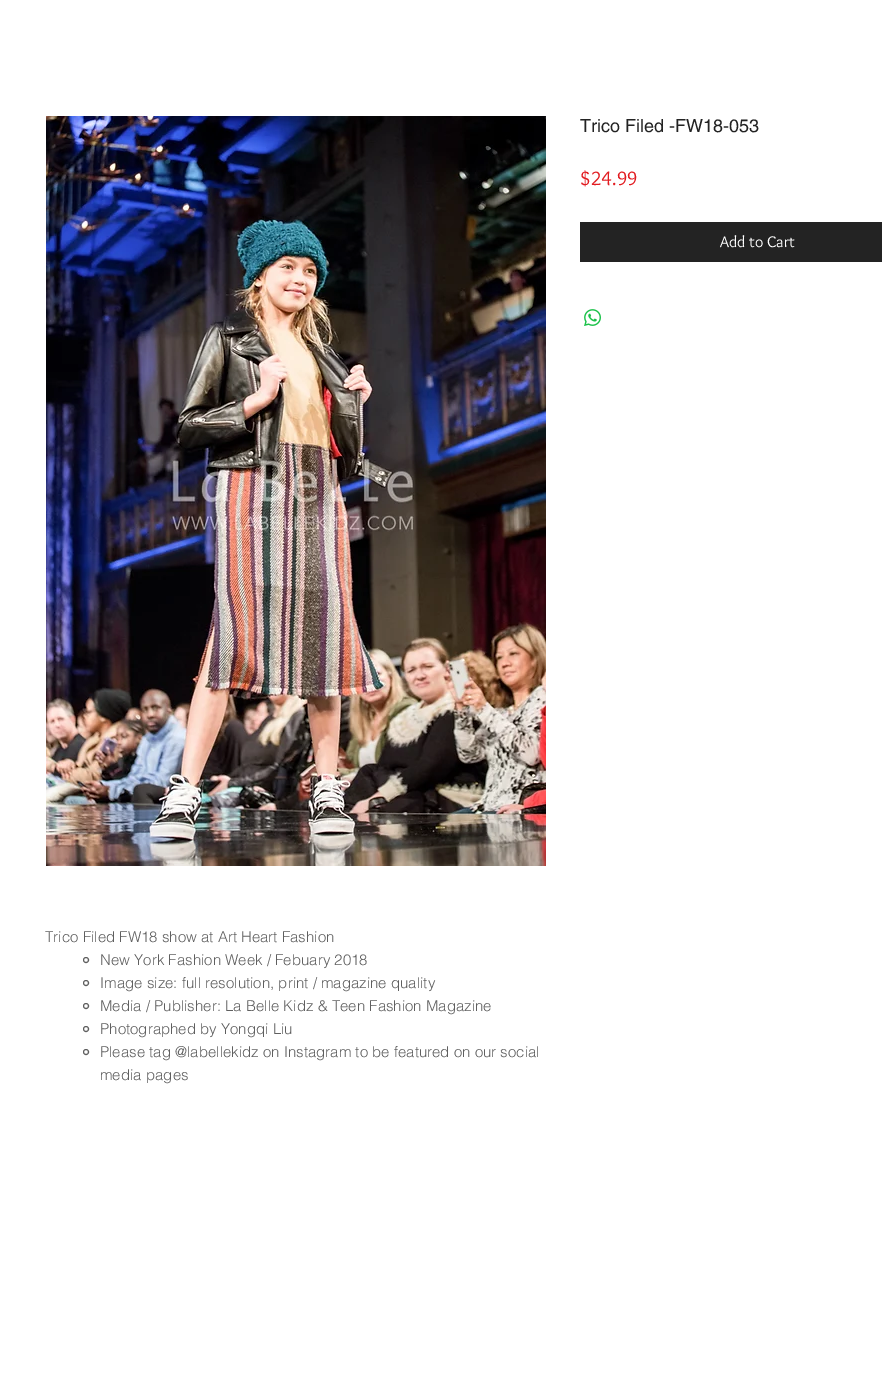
%!PS-Adobe-3.0
%%BoundingBox: 0 0 882 1388
%%LanguageLevel: 3
%%Pages: 1
%%EndComments
%%BeginProlog
/setink { dup -16 bitshift 255 div exch dup -8 bitshift 255 and 255 div exch 255 and 255 div setrgbcolor } def
/usefont { [ exch dup neg 0 0 3 -1 roll 0 0 ] selectfont } def
/disc { newpath 0 360 arc closepath } def
/drawimage { 5 dict begin { /h /w /y /x /name } { exch def } forall
  gsave x y translate w h scale
  w h 8 [w 0 0 h 0 0] name (r) file false 3 colorimage grestore end } def
%%EndProlog
%%BeginSetup
<< /PageSize [882 1388] >> setpagedevice
%%EndSetup
%%Page: 1 1
0 1388 translate 1 -1 scale
4 setmiterlimit
16#FFFFFF setink
0 0 882 1388 rectfill
/helvetica-Regular 18 usefont
16#232323 setink
580 132 moveto (Trico Filed -FW18-053) show
/Overlock-Regular 20 usefont
16#E21C21 setink
580 185 moveto ($24.99) show
16#232323 setink
580 222 302 40 rectfill
/Overlock-Regular 16 usefont
16#FFFFFF setink
720 247 moveto (Add to Cart) show
(img1.raw) 584 309 17 17 drawimage
(img2.raw) 46 116 500 750 drawimage
/helvetica-Light 15 usefont
16#5F5F5F setink
45 942 moveto (Trico Filed FW18 show at Art Heart Fashion) show
86 960 2.5 disc stroke
100 965 moveto (New York Fashion Week / Febuary 2018) show
86 983 2.5 disc stroke
100 988 moveto (Image size: full resolution, print / magazine quality) show
86 1006 2.5 disc stroke
100 1011 moveto (Media / Publisher: La Belle Kidz & Teen Fashion Magazine) show
86 1029 2.5 disc stroke
100 1034 moveto (Photographed by Yongqi Liu) show
86 1052 2.5 disc stroke
100 1057 moveto (Please tag @labellekidz on Instagram to be featured on our social) show
100 1080 moveto (media pages) show
showpage
%%EOF
